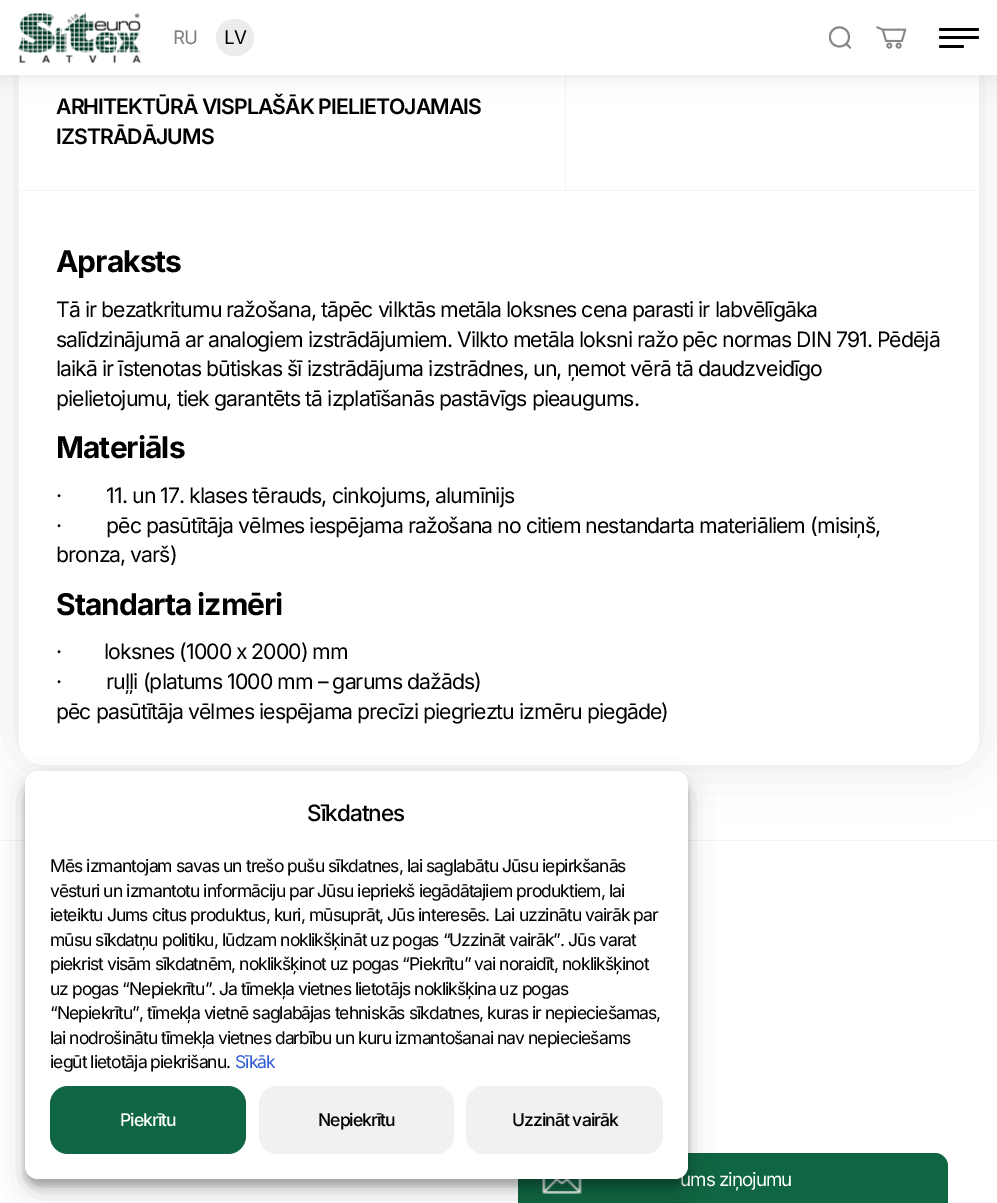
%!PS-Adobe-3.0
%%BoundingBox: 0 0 997 1203
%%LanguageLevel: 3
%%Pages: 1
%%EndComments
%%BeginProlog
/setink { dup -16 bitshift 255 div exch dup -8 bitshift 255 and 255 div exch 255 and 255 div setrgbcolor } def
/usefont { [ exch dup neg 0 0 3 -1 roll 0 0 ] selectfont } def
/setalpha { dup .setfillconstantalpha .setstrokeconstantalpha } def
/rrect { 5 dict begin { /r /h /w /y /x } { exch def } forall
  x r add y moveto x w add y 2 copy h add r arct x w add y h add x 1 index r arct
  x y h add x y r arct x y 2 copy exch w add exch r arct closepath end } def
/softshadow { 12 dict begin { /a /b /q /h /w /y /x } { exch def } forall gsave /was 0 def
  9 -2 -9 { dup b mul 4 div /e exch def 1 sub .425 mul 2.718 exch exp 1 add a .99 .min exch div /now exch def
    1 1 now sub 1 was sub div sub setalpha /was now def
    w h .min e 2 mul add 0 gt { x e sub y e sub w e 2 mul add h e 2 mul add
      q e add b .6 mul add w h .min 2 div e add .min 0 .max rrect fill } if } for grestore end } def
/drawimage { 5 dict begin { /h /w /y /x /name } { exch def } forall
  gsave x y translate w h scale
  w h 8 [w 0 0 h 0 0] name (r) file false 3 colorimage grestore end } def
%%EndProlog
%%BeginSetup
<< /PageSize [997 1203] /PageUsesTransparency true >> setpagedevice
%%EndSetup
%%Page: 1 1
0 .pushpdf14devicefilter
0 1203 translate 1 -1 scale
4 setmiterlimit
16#FFFFFF setink
0 0 997 1203 rectfill
16#000000 setink
19 -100 960 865 25 25 0.1 softshadow
16#FFFFFF setink
19 -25 960 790 25 rrect fill
16#F3F4F5 setink
565 75 1 115 rectfill
16#000000 setink
0 0 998 75 0 12.5 0.1 softshadow
16#FFFFFF setink
0 0 997 75 rectfill
(img1.raw) 18 12 123 51 drawimage
/Inter-Regular 18.75 usefont
16#808080 setink
173 44 moveto -0.95 0 (RU) ashow
16#ECECEC setink
216 19 38 37 18.5 rrect fill
16#000000 setink
224 44 moveto -0.95 0 (LV) ashow
(img2.raw) 829 26 22 23 drawimage
(img3.raw) 876 26 31 23 drawimage
939 28 40 3 1.5 rrect fill
939 36 40 3 1.5 rrect fill
939 45 25 3 1.5 rrect fill
/Inter-SemiBold 21.25 usefont
56 114 moveto -0.95 0 (ARHITEKTŪRĀ VISPLAŠĀK PIELIETOJAMAIS) ashow
56 144 moveto -0.95 0 (IZSTRĀDĀJUMS) ashow
16#F3F4F5 setink
19 190 960 1 rectfill
/Inter-Bold 30 usefont
16#000000 setink
56 272 moveto -0.95 0 (Apraksts) ashow
/Inter-Regular 21.25 usefont
56 317 moveto -0.95 0 (Tā ir bezatkritumu ražošana, tāpēc vilktās metāla loksnes cena parasti ir labvēlīgāka) ashow
56 347 moveto -0.95 0 (salīdzinājumā ar analogiem izstrādājumiem. Vilkto metāla loksni ražo pēc normas DIN 791. Pēdējā) ashow
56 376 moveto -0.95 0 (laikā ir īstenotas būtiskas šī izstrādājuma izstrādnes, un, ņemot vērā tā daudzveidīgo) ashow
56 406 moveto -0.95 0 (pielietojumu, tiek garantēts tā izplatīšanās pastāvīgs pieaugums.) ashow
/Inter-Bold 30 usefont
56 458 moveto -0.95 0 (Materiāls) ashow
/Inter-Regular 21.25 usefont
56 503 moveto -0.95 0 (·         11. un 17. klases tērauds, cinkojums, alumīnijs) ashow
56 533 moveto -0.95 0 (·         pēc pasūtītāja vēlmes iespējama ražošana no citiem nestandarta materiāliem \(misiņš,) ashow
56 562 moveto -0.95 0 (bronza, varš\)) ashow
/Inter-Bold 30 usefont
56 615 moveto -0.95 0 (Standarta izmēri) ashow
/Inter-Regular 21.25 usefont
56 659 moveto -0.25 0 32 -0.95 0 (·         loksnes \(1000 x 2000\) mm) awidthshow
56 689 moveto -0.95 0 (·         ruļļi \(platums 1000 mm – garums dažāds\)) ashow
56 719 moveto -0.95 0 (pēc pasūtītāja vēlmes iespējama precīzi piegrieztu izmēru piegāde\)) ashow
16#0F6642 setink
531 1153 moveto 935 1153 lineto 942 1153 948 1159 948 1166 curveto 948 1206 lineto 518 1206 lineto 518 1166 lineto 518 1159 524 1153 531 1153 curveto closepath fill
(img4.raw) 542 1179 40 15 drawimage
/Inter-Regular 18.75 usefont
16#FFFFFF setink
680 1186 moveto -0.95 0 (ums ziņojumu) ashow
16#F3F4F5 setink
0 840 997 1 rectfill
16#000000 setink
25 779 663 407 13 4 0.23 softshadow
25 784 663 407 13 12.5 0.19 softshadow
16#FFFFFF setink
25 771 663 408 13 rrect fill
/Inter-Medium 22.5 usefont
16#000000 setink
307 821 moveto -0.95 0 (Sīkdatnes) ashow
/Inter-Regular 17.5 usefont
50 872 moveto -0.95 0 (Mēs izmantojam savas un trešo pušu sīkdatnes, lai saglabātu Jūsu iepirkšanās) ashow
50 897 moveto -0.95 0 (vēsturi un izmantotu informāciju par Jūsu iepriekš iegādātajiem produktiem, lai) ashow
50 921 moveto -0.95 0 (ieteiktu Jums citus produktus, kuri, mūsuprāt, Jūs interesēs. Lai uzzinātu vairāk par) ashow
50 946 moveto -0.95 0 (mūsu sīkdatņu politiku, lūdzam noklikšķināt uz pogas “Uzzināt vairāk”. Jūs varat) ashow
50 970 moveto -0.95 0 (piekrist visām sīkdatnēm, noklikšķinot uz pogas “Piekrītu” vai noraidīt, noklikšķinot) ashow
50 995 moveto -0.95 0 (uz pogas “Nepiekrītu”. Ja tīmekļa vietnes lietotājs noklikšķina uz pogas) ashow
50 1019 moveto -0.95 0 (“Nepiekrītu”, tīmekļa vietnē saglabājas tehniskās sīkdatnes, kuras ir nepieciešamas,) ashow
50 1044 moveto -0.95 0 (lai nodrošinātu tīmekļa vietnes darbību un kuru izmantošanai nav nepieciešams) ashow
50 1068 moveto -0.95 0 (iegūt lietotāja piekrišanu.) ashow
16#315ED2 setink
235 1068 moveto -0.95 0 (Sīkāk) ashow
16#0F6642 setink
50 1086 196 68 18 rrect fill
/Inter-Medium 17.5 usefont
16#FFFFFF setink
120 1126 moveto -0.95 0 (Piekrītu) ashow
16#F1F1F1 setink
259 1086 195 68 18 rrect fill
16#000000 setink
318 1126 moveto -0.95 0 (Nepiekrītu) ashow
16#F1F1F1 setink
466 1086 197 68 18 rrect fill
16#000000 setink
512 1126 moveto -0.95 0 (Uzzināt vairāk) ashow
.poppdf14devicefilter showpage
%%EOF
